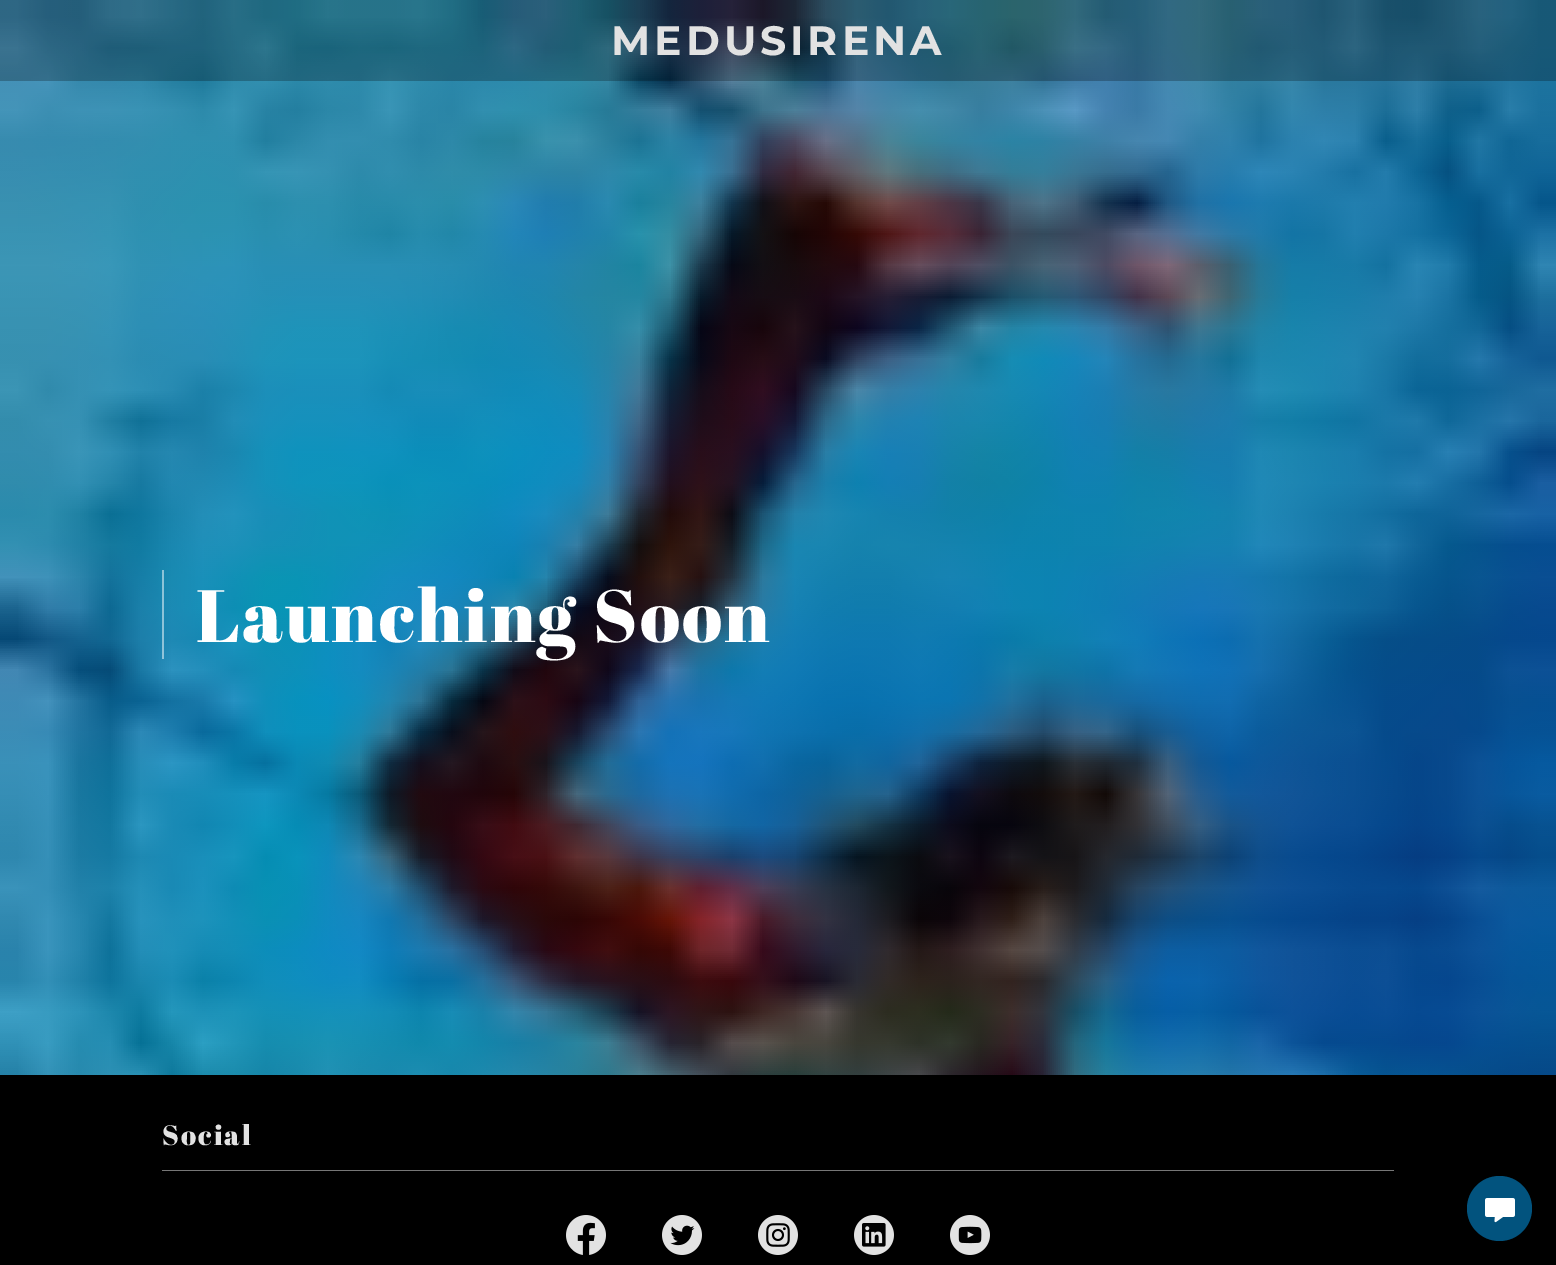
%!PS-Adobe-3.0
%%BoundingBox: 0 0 1556 1265
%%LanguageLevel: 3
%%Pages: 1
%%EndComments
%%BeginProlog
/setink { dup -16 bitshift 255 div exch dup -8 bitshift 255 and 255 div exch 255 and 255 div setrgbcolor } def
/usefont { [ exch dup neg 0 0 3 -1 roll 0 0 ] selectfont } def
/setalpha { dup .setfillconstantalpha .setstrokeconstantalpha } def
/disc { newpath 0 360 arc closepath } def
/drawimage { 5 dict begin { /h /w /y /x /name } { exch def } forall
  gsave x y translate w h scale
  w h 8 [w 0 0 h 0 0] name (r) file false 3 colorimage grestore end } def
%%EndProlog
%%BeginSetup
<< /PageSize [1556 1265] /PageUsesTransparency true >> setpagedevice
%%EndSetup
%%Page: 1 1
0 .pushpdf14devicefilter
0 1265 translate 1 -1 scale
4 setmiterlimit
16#000000 setink
0 0 1556 1265 rectfill
(img1.raw) 0 0 1556 1075 drawimage
0.25 setalpha
0 0 1556 81 rectfill
/Montserrat-Bold 41 usefont
1 setalpha
16#E2E2E2 setink
611 55 moveto 4 0 (MEDUSIRENA) ashow
0.5 setalpha
16#FFFFFF setink
162 570 2 89 rectfill
/AbrilFatface-Regular 74 usefont
1 setalpha
196 642 moveto 2 0 (Launching Soon) ashow
/AbrilFatface-Regular 28 usefont
16#E2E2E2 setink
162 1145 moveto 2 0 (Social) ashow
16#777777 setink
162 1170 1232 1 rectfill
(img2.raw) 566 1215 40 40 drawimage
(img3.raw) 662 1215 40 40 drawimage
(img4.raw) 758 1215 40 40 drawimage
(img5.raw) 854 1215 40 40 drawimage
(img6.raw) 950 1215 40 40 drawimage
16#02537E setink
1499.5 1208.5 32.5 disc fill
(img7.raw) 1485 1198 30 25 drawimage
.poppdf14devicefilter showpage
%%EOF
